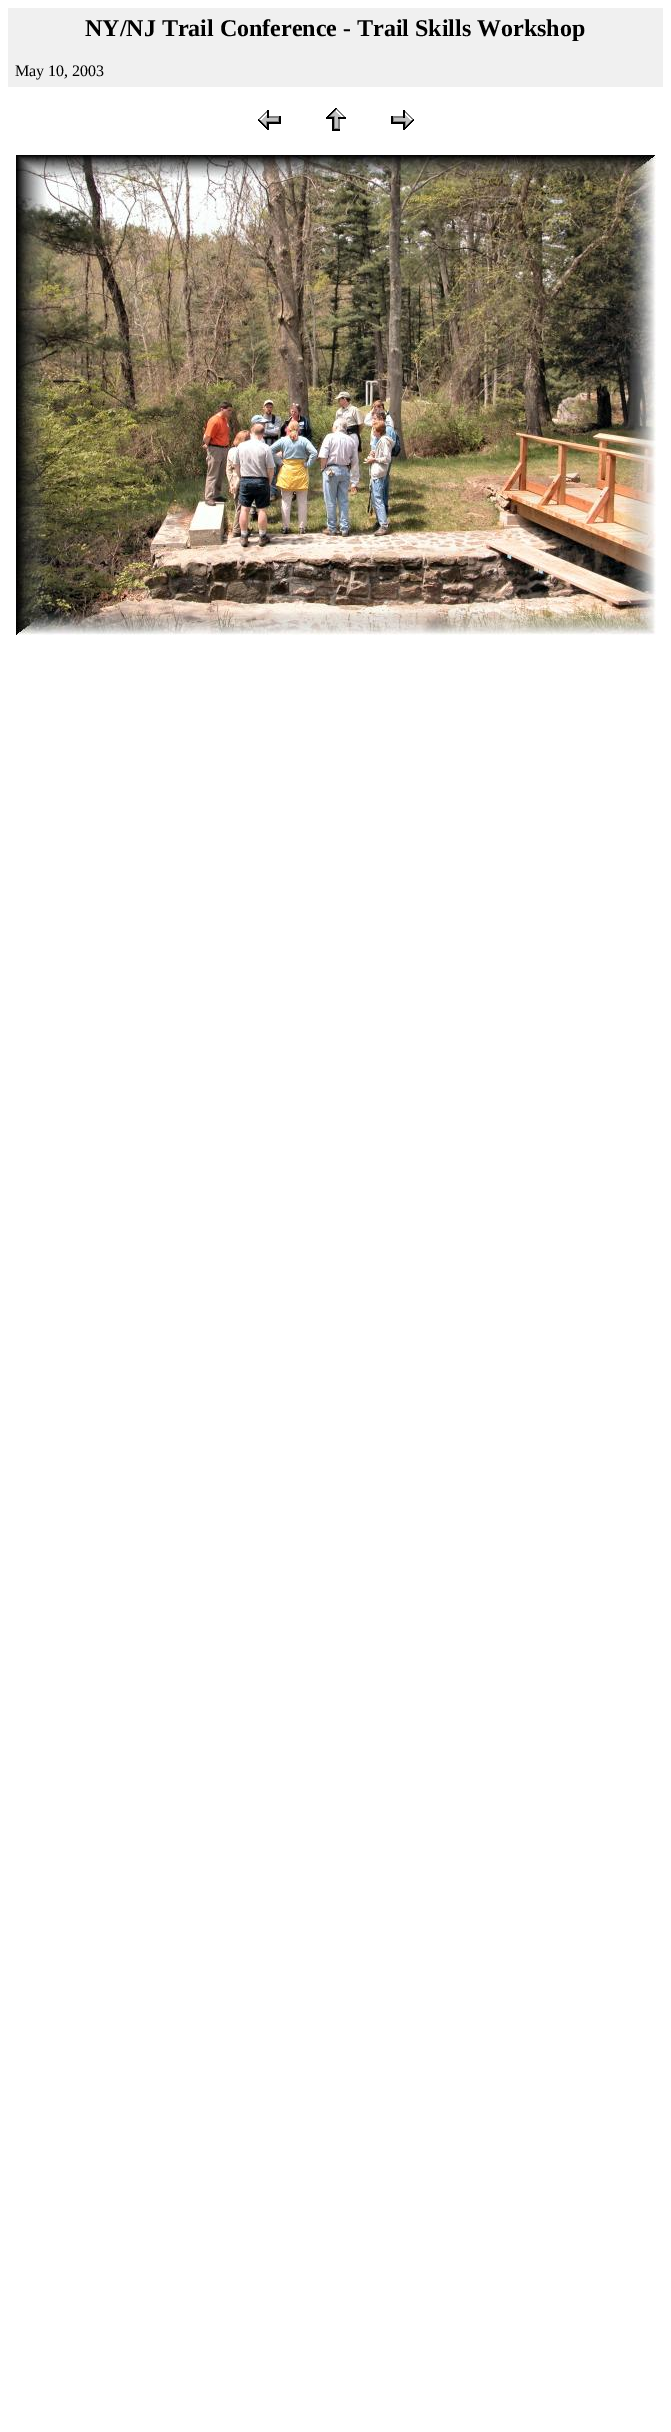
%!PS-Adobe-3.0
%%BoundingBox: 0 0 671 2432
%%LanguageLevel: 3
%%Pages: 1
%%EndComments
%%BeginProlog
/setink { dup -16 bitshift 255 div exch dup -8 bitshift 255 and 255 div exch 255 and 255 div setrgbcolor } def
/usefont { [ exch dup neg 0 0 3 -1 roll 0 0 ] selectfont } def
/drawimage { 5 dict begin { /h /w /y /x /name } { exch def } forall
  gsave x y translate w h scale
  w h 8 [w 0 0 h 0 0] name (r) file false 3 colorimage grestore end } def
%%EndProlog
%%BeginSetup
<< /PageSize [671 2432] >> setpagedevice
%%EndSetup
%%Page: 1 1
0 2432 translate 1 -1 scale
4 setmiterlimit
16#FFFFFF setink
0 0 671 2432 rectfill
16#F0F0F0 setink
8 8 655 79 rectfill
/LiberationSerif-Bold 24 usefont
16#000000 setink
85 36 moveto (NY/NJ Trail Conference - Trail Skills Workshop) show
/LiberationSerif-Regular 16 usefont
15 76 moveto (May 10, 2003) show
(img1.raw) 258 110 23 20 drawimage
(img2.raw) 326 108 20 23 drawimage
(img3.raw) 391 110 23 20 drawimage
(img4.raw) 16 155 640 480 drawimage
showpage
%%EOF
